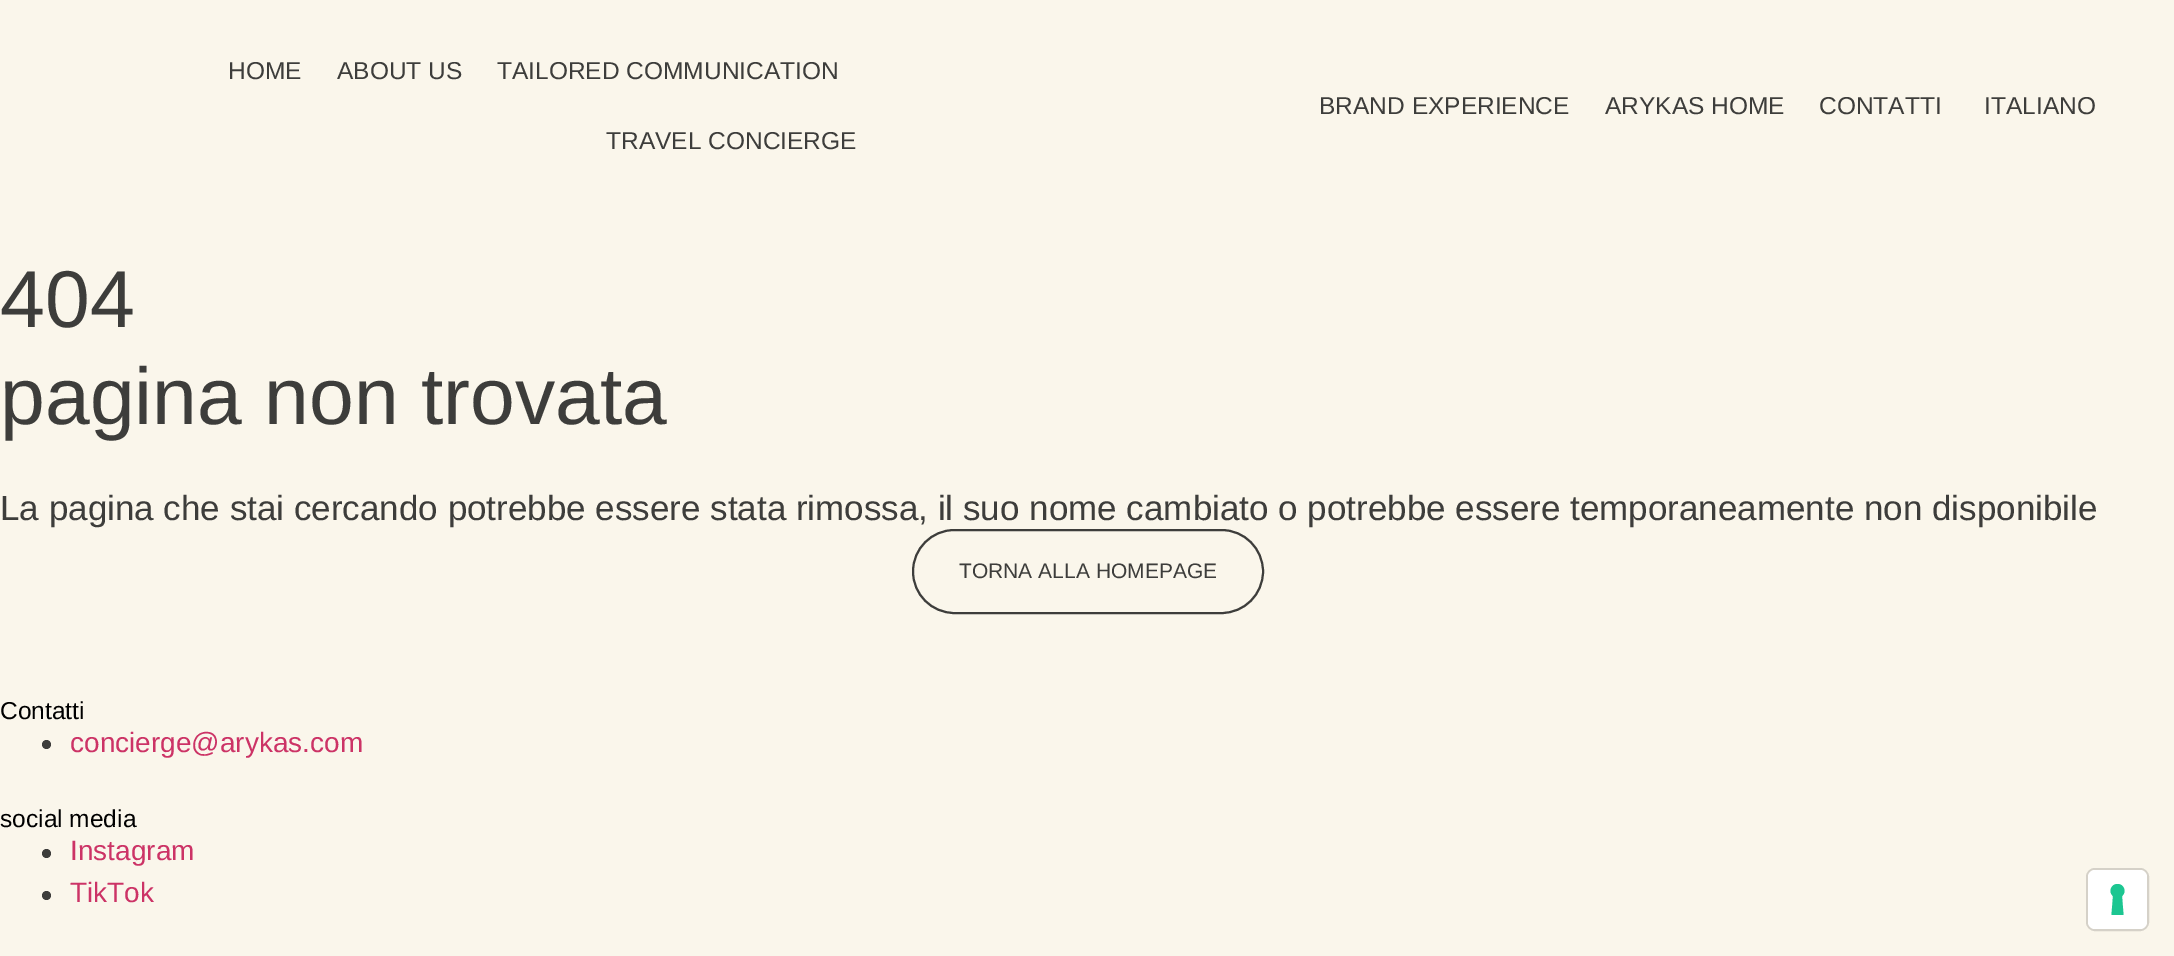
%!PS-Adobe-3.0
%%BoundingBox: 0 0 2174 956
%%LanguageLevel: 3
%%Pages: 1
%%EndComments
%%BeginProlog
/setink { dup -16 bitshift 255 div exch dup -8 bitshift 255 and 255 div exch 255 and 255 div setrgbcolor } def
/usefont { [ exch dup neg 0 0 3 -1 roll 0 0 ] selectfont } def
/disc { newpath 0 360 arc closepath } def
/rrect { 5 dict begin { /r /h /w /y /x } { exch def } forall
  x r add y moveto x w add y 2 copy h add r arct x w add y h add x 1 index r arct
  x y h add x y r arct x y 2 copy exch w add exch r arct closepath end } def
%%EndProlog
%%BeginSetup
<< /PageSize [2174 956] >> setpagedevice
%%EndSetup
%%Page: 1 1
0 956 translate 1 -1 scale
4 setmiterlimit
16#FAF6EB setink
0 0 2174 956 rectfill
/LiberationSans-Regular 24.5 usefont
16#3D3D3B setink
[
    [(HOME) 228 79]
    [(ABOUT US) 337 79]
    [(TAILORED COMMUNICATION) 497 79]
    [(TRAVEL CONCIERGE) 606 149]
    [(BRAND EXPERIENCE) 1319 114]
    [(ARYKAS HOME) 1605 114]
    [(CONTATTI) 1819 114]
    [(ITALIANO) 1984 114]
] { aload pop moveto show } forall
/LiberationSans-Regular 80.5 usefont
0 327 moveto (404) show
0 424 moveto (pagina non trovata) show
/LiberationSans-Regular 35 usefont
0 520 moveto (La pagina che stai cercando potrebbe essere stata rimossa, il suo nome cambiato o potrebbe essere temporaneamente non disponibile) show
2 setlinewidth
913 530 350 83 41.5 rrect stroke
/LiberationSans-Regular 21 usefont
959 578 moveto (TORNA ALLA HOMEPAGE) show
/LiberationSans-Regular 24.5 usefont
16#000000 setink
0 719 moveto (Contatti) show
16#3D3D3B setink
46.5 744.5 4.5 disc fill
/LiberationSans-Regular 28 usefont
16#CC3366 setink
70 752 moveto (concierge@arykas.com) show
/LiberationSans-Regular 24.5 usefont
16#000000 setink
0 827 moveto (social media) show
16#3D3D3B setink
46.5 853.5 4.5 disc fill
/LiberationSans-Regular 28 usefont
16#CC3366 setink
70 860 moveto (Instagram) show
16#3D3D3B setink
46.5 895.5 4.5 disc fill
16#CC3366 setink
70 902 moveto (TikTok) show
16#D5D1C8 setink
2087 869 61 61 8 rrect stroke
16#FFFFFF setink
2088 870 59 59 7 rrect fill
16#1CC691 setink
2117.5 884 moveto 2124 884 2127 892 2122 896 curveto 2123.5 915 lineto 2111.5 915 lineto 2113 896 lineto 2108 892 2111 884 2117.5 884 curveto closepath eofill
showpage
%%EOF
